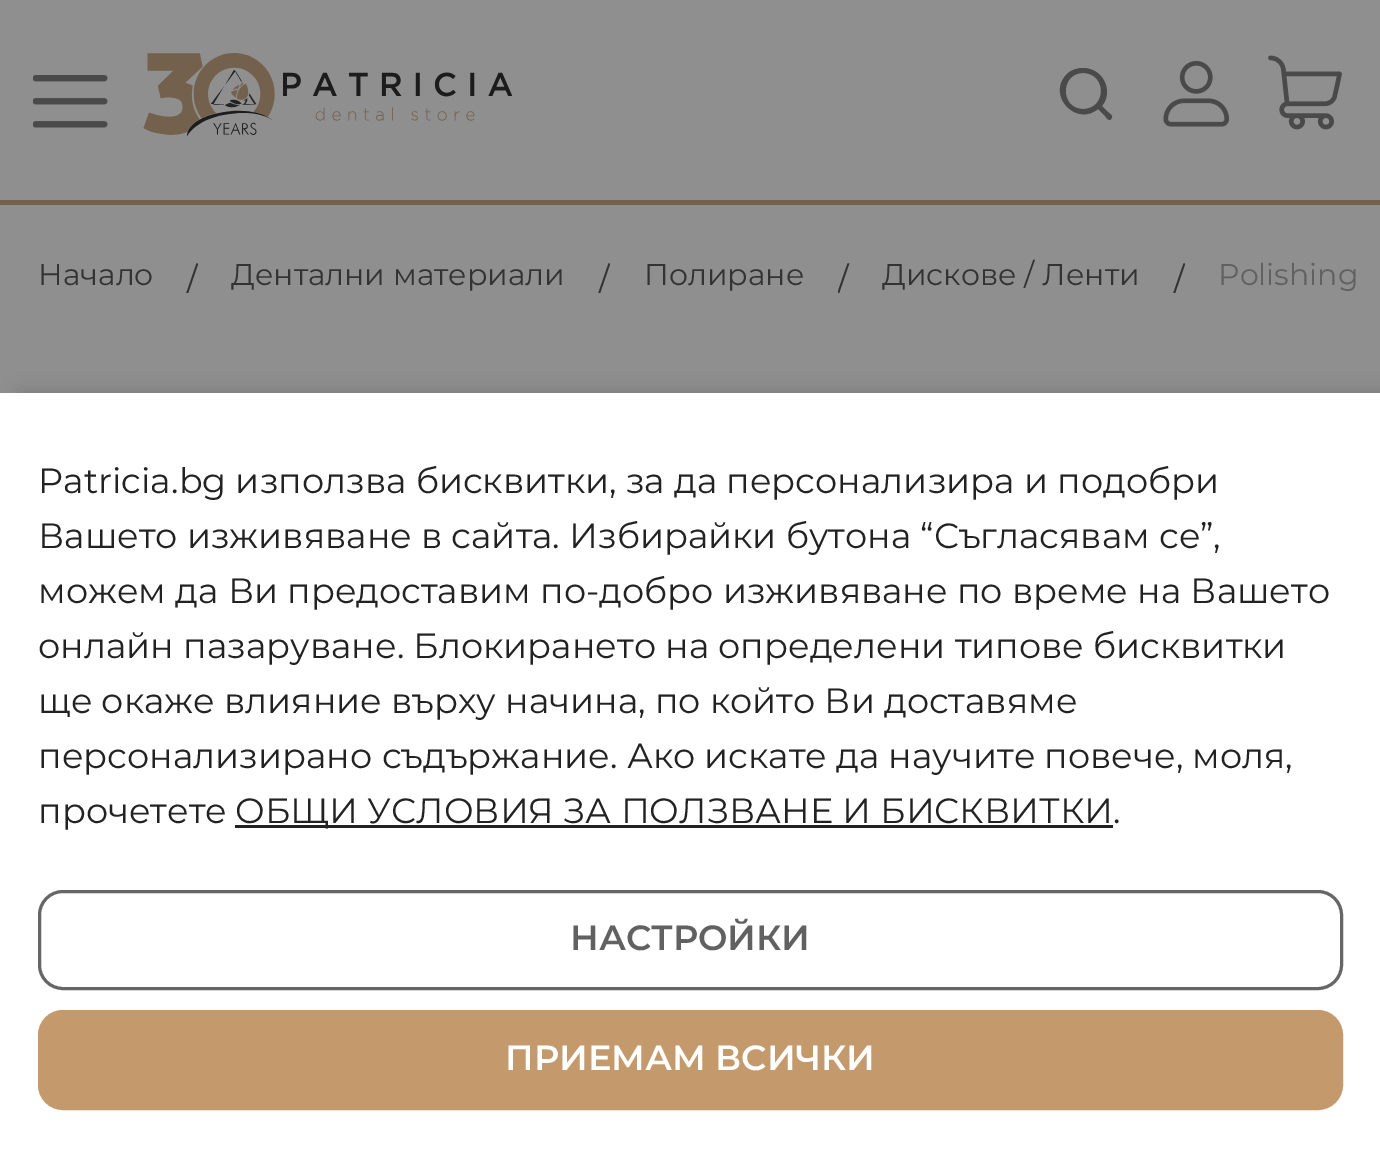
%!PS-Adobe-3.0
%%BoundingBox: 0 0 1380 1171
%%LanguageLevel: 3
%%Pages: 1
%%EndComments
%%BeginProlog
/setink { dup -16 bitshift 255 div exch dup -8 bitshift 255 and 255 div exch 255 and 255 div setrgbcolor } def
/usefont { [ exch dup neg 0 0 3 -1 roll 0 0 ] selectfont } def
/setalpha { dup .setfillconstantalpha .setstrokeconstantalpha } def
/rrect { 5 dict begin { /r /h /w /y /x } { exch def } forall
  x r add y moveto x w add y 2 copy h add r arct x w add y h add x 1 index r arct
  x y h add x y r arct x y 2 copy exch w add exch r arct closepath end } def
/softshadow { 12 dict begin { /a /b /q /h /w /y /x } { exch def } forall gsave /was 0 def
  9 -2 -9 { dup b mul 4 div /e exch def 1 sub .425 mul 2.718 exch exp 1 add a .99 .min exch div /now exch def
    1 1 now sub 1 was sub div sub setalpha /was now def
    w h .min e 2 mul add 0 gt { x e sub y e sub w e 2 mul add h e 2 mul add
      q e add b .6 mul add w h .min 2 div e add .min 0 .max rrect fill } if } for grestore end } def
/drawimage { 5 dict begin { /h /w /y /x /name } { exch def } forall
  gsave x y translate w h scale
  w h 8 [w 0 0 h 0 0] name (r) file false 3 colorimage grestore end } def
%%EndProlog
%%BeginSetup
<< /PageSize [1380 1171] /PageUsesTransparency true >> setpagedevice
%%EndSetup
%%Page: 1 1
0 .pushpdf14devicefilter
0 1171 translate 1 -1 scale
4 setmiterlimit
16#8F8F8F setink
0 0 1380 1171 rectfill
16#74614D setink
0 200 1380 5 rectfill
(img1.raw) 33 75 75 53 drawimage
(img2.raw) 143 53 370 83 drawimage
16#4A4A4A setink
1083 68 moveto 1077 68 1071 70 1067 74 curveto 1046 95 1076 127 1098 109 curveto 1105 116 lineto 1106 117 1109 122 1111 119 curveto 1114 116 1110 114 1108 112 curveto 1102 106 lineto 1114 91 1103 68 1083 68 curveto closepath 1083 73 moveto 1107 73 1107 109 1083 109 curveto 1060 109 1060 73 1083 73 curveto closepath fill
(img3.raw) 1163 60 67 67 drawimage
(img4.raw) 1268 55 74 75 drawimage
/Montserrat-Regular 30 usefont
16#333333 setink
38 285 moveto (Начало) show
gsave
185 255 13 38 rectclip
/LiberationSerif-Regular 45 usefont
186 293 moveto (/) show
grestore
231 285 moveto (Дентални материали) show
gsave
598 255 12 38 rectclip
/LiberationSerif-Regular 45 usefont
598 293 moveto (/) show
grestore
644 285 moveto (Полиране) show
gsave
838 255 12 38 rectclip
/LiberationSerif-Regular 45 usefont
837 293 moveto (/) show
grestore
882 285 moveto (Дискове / Ленти) show
gsave
1173 255 12 38 rectclip
/LiberationSerif-Regular 45 usefont
1173 293 moveto (/) show
grestore
16#616161 setink
1218 285 moveto (Polishing) show
16#000000 setink
20 393 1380 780 0 10 0.15 softshadow
16#FFFFFF setink
0 393 1380 778 rectfill
/Montserrat-Regular 35 usefont
16#222222 setink
[
    [(Patricia.bg използва бисквитки, за да персонализира и подобри) 38 493]
    [(Вашето изживяване в сайта. Избирайки бутона “Съгласявам се”,) 38 548]
    [(можем да Ви предоставим по-добро изживяване по време на Вашето) 38 603]
    [(онлайн пазаруване. Блокирането на определени типове бисквитки) 38 658]
    [(ще окаже влияние върху начина, по който Ви доставяме) 38 713]
    [(персонализирано съдържание. Ако искате да научите повече, моля,) 38 768]
    [(прочетете) 38 823]
] { aload pop moveto show } forall
235 825 878 3 rectfill
235 823 moveto (ОБЩИ УСЛОВИЯ ЗА ПОЛЗВАНЕ И БИСКВИТКИ.) show
16#666666 setink
3 setlinewidth
39.5 891.5 1302 97 23.5 rrect stroke
/Montserrat-SemiBold 35 usefont
16#616161 setink
570 950 moveto (НАСТРОЙКИ) show
16#C49A6C setink
39.5 1011.5 1302 97 23.5 rrect gsave fill grestore
stroke
16#FFFFFF setink
505 1070 moveto (ПРИЕМАМ ВСИЧКИ) show
.poppdf14devicefilter showpage
%%EOF
